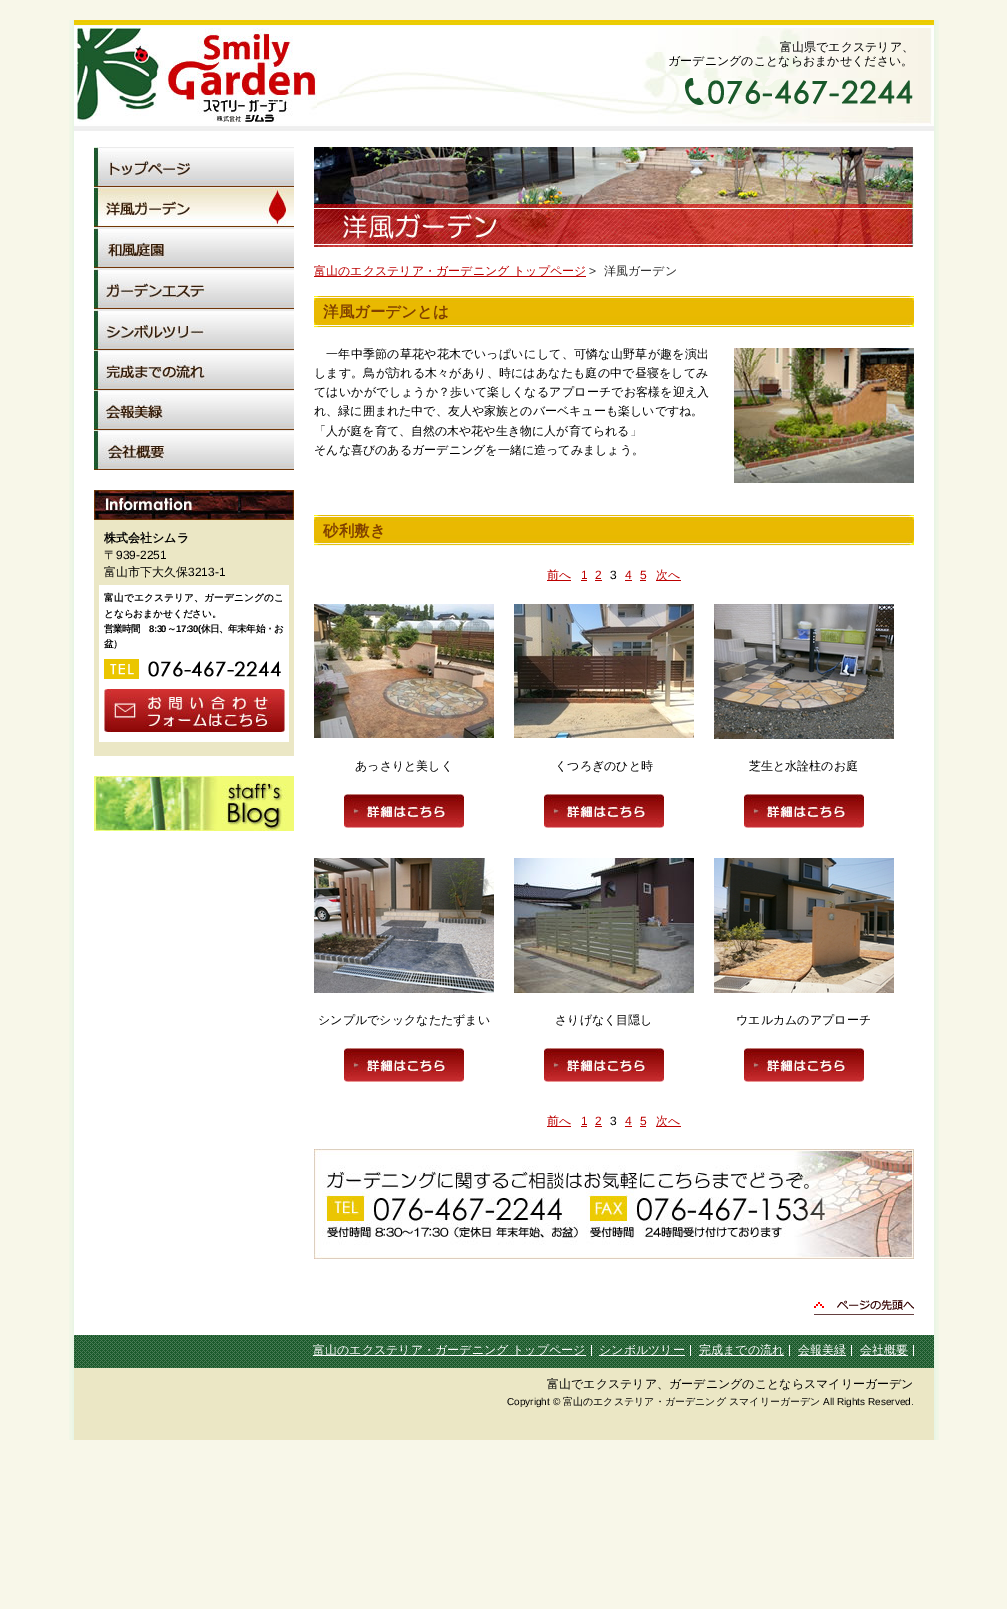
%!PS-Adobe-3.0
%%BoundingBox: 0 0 1007 1609
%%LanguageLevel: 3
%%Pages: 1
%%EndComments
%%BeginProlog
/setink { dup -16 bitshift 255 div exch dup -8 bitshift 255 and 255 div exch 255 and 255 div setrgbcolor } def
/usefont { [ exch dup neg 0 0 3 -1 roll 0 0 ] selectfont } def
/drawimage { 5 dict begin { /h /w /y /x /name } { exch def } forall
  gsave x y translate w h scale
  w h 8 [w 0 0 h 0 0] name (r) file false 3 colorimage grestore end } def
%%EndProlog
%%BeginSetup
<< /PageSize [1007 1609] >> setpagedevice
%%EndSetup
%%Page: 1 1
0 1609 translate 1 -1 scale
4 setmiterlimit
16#F8F7E9 setink
0 0 1007 1609 rectfill
(img1.raw) 69 20 870 1420 drawimage
(img2.raw) 74 20 860 111 drawimage
(img3.raw) 77 28 240 94 drawimage
/WenQuanYiZenHei-Medium 12 usefont
16#000000 setink
780 51 moveto (富山県でエクステリア、) show
668 65 moveto (ガーデニングのことならおまかせください。) show
(img4.raw) 685 78 228 27 drawimage
(img5.raw) 94 147 200 40 drawimage
16#E9E9E9 setink
94 227 200 1 rectfill
(img6.raw) 94 187 200 40 drawimage
94 268 200 1 rectfill
(img7.raw) 94 228 200 40 drawimage
94 309 200 1 rectfill
(img8.raw) 94 269 200 40 drawimage
(img9.raw) 94 310 200 40 drawimage
(img10.raw) 94 350 200 40 drawimage
(img11.raw) 94 390 200 40 drawimage
(img12.raw) 94 430 200 40 drawimage
(img13.raw) 94 490 200 30 drawimage
16#EBE7C5 setink
94 520 200 236 rectfill
/WenQuanYiZenHei-Bold 12 usefont
16#000000 setink
104 542 moveto (株式会社シムラ) show
/WenQuanYiZenHei-Medium 12 usefont
104 559 moveto (〒) show
/LiberationSans-Regular 12 usefont
116 559 moveto (939-2251) show
/WenQuanYiZenHei-Medium 12 usefont
104 576 moveto (富山市下大久保) show
/LiberationSans-Regular 12 usefont
188 576 moveto (3213-1) show
16#FFFFFF setink
99 585 190 157 rectfill
/WenQuanYiZenHei-Bold 9.6 usefont
16#000000 setink
104 601 moveto 0.25 0 (富山でエクステリア、ガーデニングのこ) ashow
104 617 moveto (とならおまかせください。) show
104 632 moveto -0.5 0 (営業時間) ashow
/LiberationSans-Bold 9.6 usefont
149 632 moveto -0.5 0 (8:30) ashow
/WenQuanYiZenHei-Bold 9.6 usefont
167 632 moveto -0.5 0 (～) ashow
/LiberationSans-Bold 9.6 usefont
176 632 moveto -0.5 0 (17:30\() ashow
/WenQuanYiZenHei-Bold 9.6 usefont
201 632 moveto -0.5 0 (休日、年末年始・お) ashow
104 647 moveto -1 0 (盆）) ashow
(img14.raw) 104 659 177 20 drawimage
(img15.raw) 104 689 181 43 drawimage
(img16.raw) 94 776 200 55 drawimage
(img17.raw) 314 147 600 100 drawimage
16#BD0000 setink
314 276 272 1 rectfill
/WenQuanYiZenHei-Medium 12 usefont
314 275 moveto (富山のエクステリア・ガーデニング トップページ) show
/LiberationSans-Regular 12 usefont
16#333333 setink
589 275 moveto (>) show
/WenQuanYiZenHei-Medium 12 usefont
604 275 moveto (洋風ガーデン) show
(img18.raw) 314 303 600 25 drawimage
(img19.raw) 314 296 600 7 drawimage
/WenQuanYiZenHei-Bold 15.5 usefont
16#804000 setink
323 317 moveto (洋風ガーデンとは) show
/WenQuanYiZenHei-Medium 12 usefont
16#000000 setink
326 358 moveto 0.25 0 (一年中季節の草花や花木でいっぱいにして、可憐な山野草が趣を演出) ashow
314 377 moveto 0.15 0 (します。鳥が訪れる木々があり、時にはあなたも庭の中で昼寝をしてみ) ashow
314 396 moveto 0.15 0 (てはいかがでしょうか？歩いて楽しくなるアプローチでお客様を迎え入) ashow
[
    [(れ、緑に囲まれた中で、友人や家族とのバーベキューも楽しいですね。) 314 415]
    [(「人が庭を育て、自然の木や花や生き物に人が育てられる」) 314 435]
    [(そんな喜びのあるガーデニングを一緒に造ってみましょう。) 314 454]
] { aload pop moveto show } forall
(img20.raw) 734 348 180 135 drawimage
(img21.raw) 314 522 600 24 drawimage
(img19.raw) 314 515 600 7 drawimage
/WenQuanYiZenHei-Bold 15.5 usefont
16#804000 setink
323 536 moveto (砂利敷き) show
16#BD0000 setink
547 580 24 1 rectfill
/WenQuanYiZenHei-Medium 12 usefont
547 579 moveto (前へ) show
/LiberationSans-Regular 12 usefont
581 579 moveto (1) show
581 580 6 1 rectfill
595 579 moveto (2) show
595 580 7 1 rectfill
16#000000 setink
610 579 moveto (3) show
16#BD0000 setink
625 579 moveto (4) show
625 580 7 1 rectfill
640 579 moveto (5) show
640 580 6 1 rectfill
656 580 25 1 rectfill
/WenQuanYiZenHei-Medium 12 usefont
656 579 moveto (次へ) show
(img22.raw) 314 604 180 134 drawimage
16#000000 setink
355 770 moveto (あっさりと美しく) show
(img23.raw) 344 794 120 34 drawimage
(img24.raw) 514 604 180 134 drawimage
555 770 moveto (くつろぎのひと時) show
(img23.raw) 544 794 120 34 drawimage
(img25.raw) 714 604 180 135 drawimage
749 770 moveto (芝生と水詮柱のお庭) show
(img23.raw) 744 794 120 34 drawimage
(img26.raw) 314 858 180 135 drawimage
318 1024 moveto (シンプルでシックなたたずまい) show
(img23.raw) 344 1048 120 34 drawimage
(img27.raw) 514 858 180 135 drawimage
555 1024 moveto (さりげなく目隠し) show
(img23.raw) 544 1048 120 34 drawimage
(img28.raw) 714 858 180 135 drawimage
736 1024 moveto (ウエルカムのアプローチ) show
(img23.raw) 744 1048 120 34 drawimage
16#BD0000 setink
547 1126 24 1 rectfill
547 1125 moveto (前へ) show
/LiberationSans-Regular 12 usefont
581 1125 moveto (1) show
581 1126 6 1 rectfill
595 1125 moveto (2) show
595 1126 7 1 rectfill
16#000000 setink
610 1125 moveto (3) show
16#BD0000 setink
625 1125 moveto (4) show
625 1126 7 1 rectfill
640 1125 moveto (5) show
640 1126 6 1 rectfill
656 1126 25 1 rectfill
/WenQuanYiZenHei-Medium 12 usefont
656 1125 moveto (次へ) show
(img29.raw) 314 1149 600 110 drawimage
(img30.raw) 814 1300 100 15 drawimage
16#EBE7C5 setink
74 1368 860 72 rectfill
(img31.raw) 74 1335 860 33 drawimage
16#FFFFFF setink
313 1355 273 1 rectfill
313 1354 moveto (富山のエクステリア・ガーデニング トップページ) show
591 1345 1 11 rectfill
599 1355 86 1 rectfill
599 1354 moveto (シンボルツリー) show
690 1345 1 11 rectfill
699 1355 85 1 rectfill
699 1354 moveto (完成までの流れ) show
789 1345 1 11 rectfill
798 1355 48 1 rectfill
798 1354 moveto (会報美緑) show
851 1345 1 11 rectfill
860 1355 48 1 rectfill
860 1354 moveto (会社概要) show
913 1345 1 11 rectfill
16#000000 setink
547 1388 moveto (富山でエクステリア、ガーデニングのことならスマイリーガーデン) show
/LiberationSans-Regular 10 usefont
507 1405 moveto (Copyright ©) show
/WenQuanYiZenHei-Medium 10 usefont
563 1405 moveto (富山のエクステリア・ガーデニング スマイリーガーデン) show
/LiberationSans-Regular 10 usefont
823 1405 moveto (All Rights Reserved.) show
showpage
%%EOF
